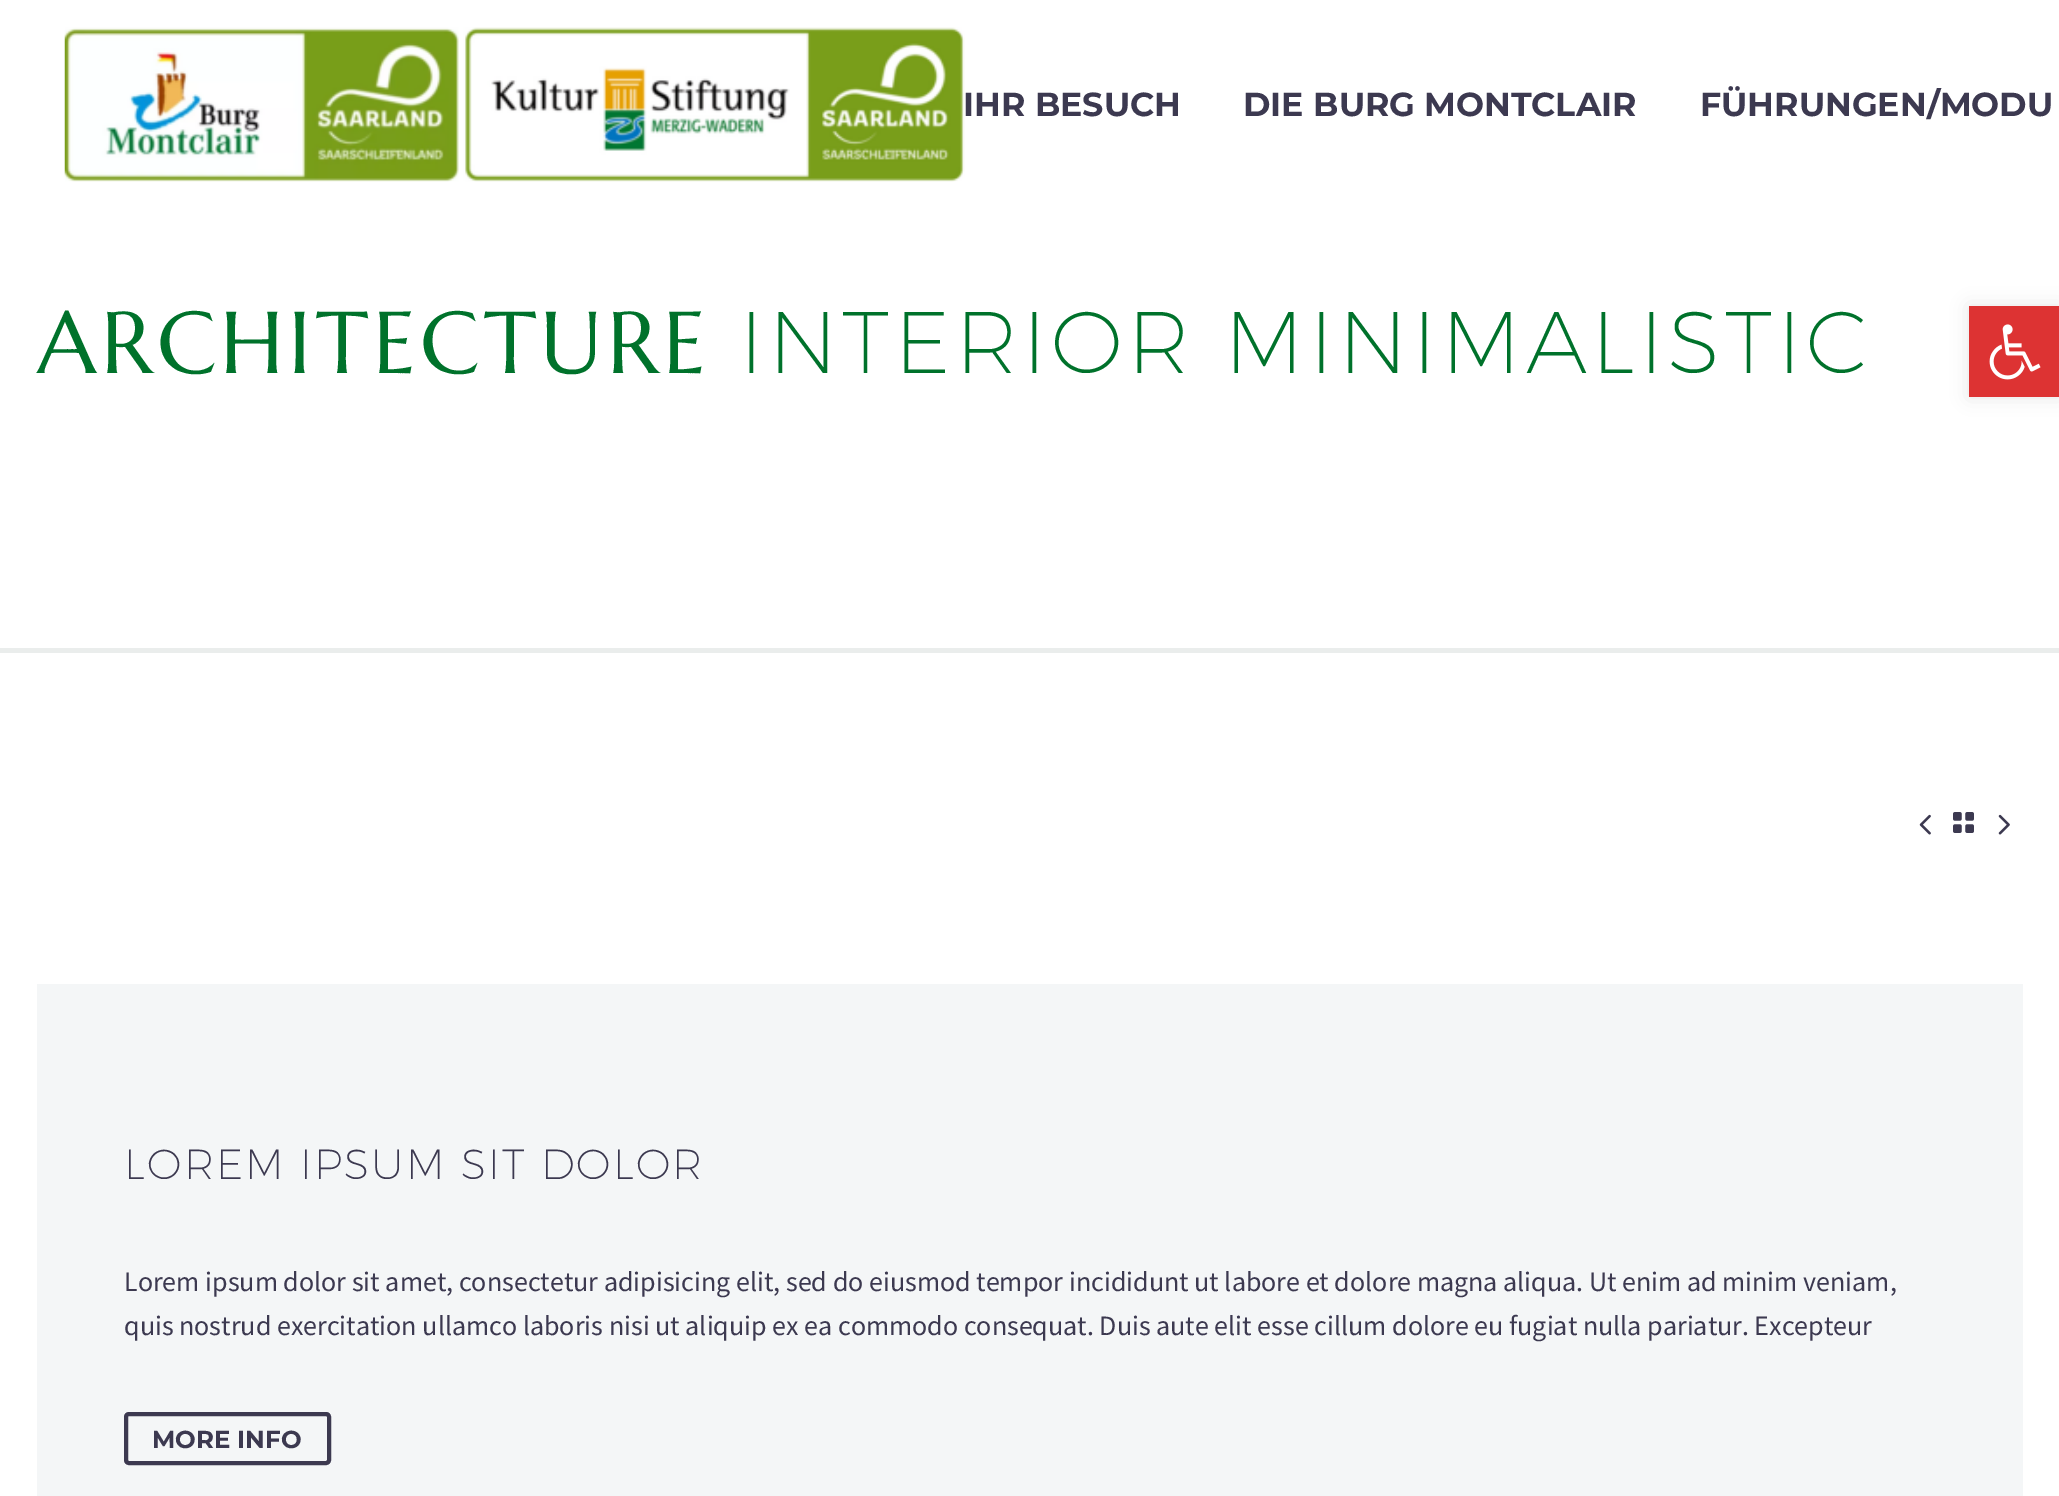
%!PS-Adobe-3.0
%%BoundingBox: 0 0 2059 1496
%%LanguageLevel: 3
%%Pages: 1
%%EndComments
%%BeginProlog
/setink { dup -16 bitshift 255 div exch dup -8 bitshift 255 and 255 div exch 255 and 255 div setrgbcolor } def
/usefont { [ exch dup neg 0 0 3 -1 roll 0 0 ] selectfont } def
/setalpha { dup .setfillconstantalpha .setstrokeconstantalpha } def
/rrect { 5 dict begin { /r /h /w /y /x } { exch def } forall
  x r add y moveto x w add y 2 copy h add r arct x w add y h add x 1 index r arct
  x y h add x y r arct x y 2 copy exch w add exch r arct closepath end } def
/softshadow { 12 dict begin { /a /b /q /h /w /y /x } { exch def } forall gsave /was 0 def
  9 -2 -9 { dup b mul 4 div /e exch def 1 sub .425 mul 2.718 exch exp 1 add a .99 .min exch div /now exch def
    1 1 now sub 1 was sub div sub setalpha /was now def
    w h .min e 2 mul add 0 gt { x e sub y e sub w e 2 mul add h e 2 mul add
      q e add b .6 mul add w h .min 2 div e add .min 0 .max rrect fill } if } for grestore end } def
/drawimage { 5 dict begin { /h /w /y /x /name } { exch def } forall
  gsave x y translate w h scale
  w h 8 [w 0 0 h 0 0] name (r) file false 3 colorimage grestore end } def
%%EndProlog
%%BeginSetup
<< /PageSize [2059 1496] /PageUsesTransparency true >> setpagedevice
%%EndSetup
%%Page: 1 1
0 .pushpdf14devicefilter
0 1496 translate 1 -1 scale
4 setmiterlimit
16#FFFFFF setink
0 0 2059 1496 rectfill
(img1.raw) 64 27 901 155 drawimage
/Montserrat-Bold 33.25 usefont
16#3C3950 setink
[
    [(IHR BESUCH) 963 116]
    [(DIE BURG MONTCLAIR) 1243 116]
    [(FÜHRUNGEN/MODU) 1700 116]
] { aload pop moveto show } forall
16#EAEDEC setink
0 648 2059 5 rectfill
/Marcellus-Regular 87.5 usefont
16#00722B setink
37 373 moveto 4.4 0 (ARCHITECTURE) ashow
/Montserrat-ExtraLight 87.5 usefont
739 373 moveto 4.4 0 (INTERIOR MINIMALISTIC) ashow
(img2.raw) 1919 814 12 21 drawimage
(img3.raw) 1953 812 21 21 drawimage
(img4.raw) 1998 814 12 21 drawimage
16#F4F6F7 setink
37 984 1986 512 rectfill
/Montserrat-ExtraLight 42 usefont
16#3C3950 setink
124 1179 moveto 2.1 0 (LOREM IPSUM SIT DOLOR) ashow
/SourceSansPro-Regular 28 usefont
124 1291 moveto (Lorem ipsum dolor sit amet, consectetur adipisicing elit, sed do eiusmod tempor incididunt ut labore et dolore magna aliqua. Ut enim ad minim veniam,) show
124 1335 moveto (quis nostrud exercitation ullamco laboris nisi ut aliquip ex ea commodo consequat. Duis aute elit esse cillum dolore eu fugiat nulla pariatur. Excepteur) show
4 setlinewidth
126 1414 203 49 3 rrect stroke
/Montserrat-Bold 24.5 usefont
152 1448 moveto (MORE INFO) show
16#000000 setink
1969 306 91 91 0 9 0.1 softshadow
16#DD3333 setink
1969 306 90 91 rectfill
(img5.raw) 1989 324 52 56 drawimage
.poppdf14devicefilter showpage
%%EOF
